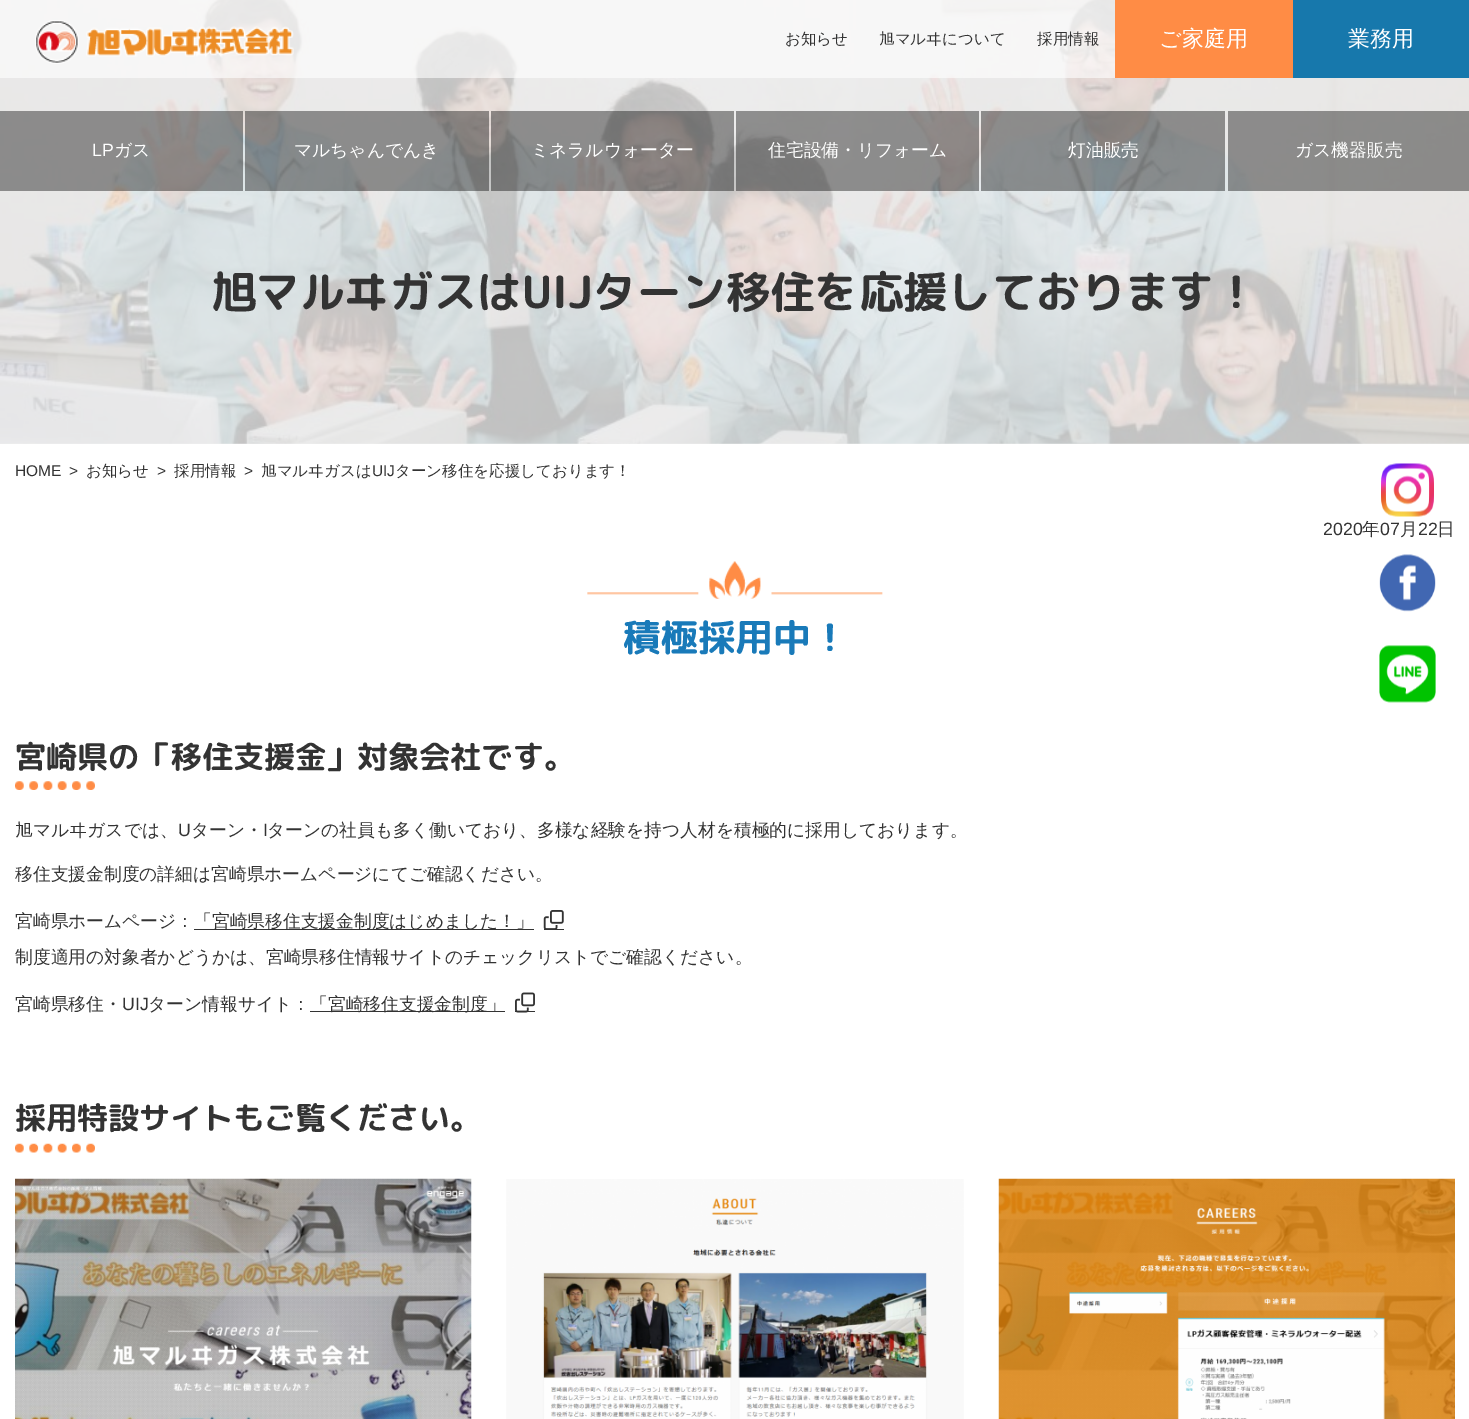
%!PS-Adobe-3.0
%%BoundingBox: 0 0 1469 1419
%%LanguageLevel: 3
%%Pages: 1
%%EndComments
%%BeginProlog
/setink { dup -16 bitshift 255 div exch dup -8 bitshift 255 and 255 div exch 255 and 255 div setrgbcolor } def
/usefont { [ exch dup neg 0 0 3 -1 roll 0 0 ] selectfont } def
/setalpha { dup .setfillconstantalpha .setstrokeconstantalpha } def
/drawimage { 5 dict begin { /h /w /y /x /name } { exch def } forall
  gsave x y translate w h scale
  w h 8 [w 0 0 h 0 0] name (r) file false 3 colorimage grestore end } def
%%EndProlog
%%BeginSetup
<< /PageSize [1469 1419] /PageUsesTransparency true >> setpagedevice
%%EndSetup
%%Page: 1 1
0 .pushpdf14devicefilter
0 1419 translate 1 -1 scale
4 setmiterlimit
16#FFFFFF setink
0 0 1469 1419 rectfill
(img1.raw) 0 0 1469 444 drawimage
0.6 setalpha
0 0 1115 78 rectfill
1 setalpha
(img2.raw) 35 20 259 44 drawimage
/WenQuanYiZenHei-Medium 15.5 usefont
16#333333 setink
[
    [(お知らせ) 785 44]
    [(旭マルヰについて) 879 44]
    [(採用情報) 1037 44]
] { aload pop moveto show } forall
16#FF8C45 setink
1115 0 178 78 rectfill
/WenQuanYiZenHei-Medium 22 usefont
16#FFFFFF setink
1159 46 moveto (ご家庭用) show
16#1778AC setink
1293 0 176 78 rectfill
16#FFFFFF setink
1348 46 moveto (業務用) show
0.4 setalpha
16#000000 setink
0 111 243 80 rectfill
/LiberationSans-Regular 17.75 usefont
1 setalpha
16#FFFFFF setink
92 156 moveto (LP) show
/WenQuanYiZenHei-Medium 17.75 usefont
114 156 moveto (ガス) show
0.4 setalpha
16#000000 setink
245 111 244 80 rectfill
1 setalpha
16#FFFFFF setink
294 156 moveto (マルちゃんでんき) show
0.4 setalpha
16#000000 setink
491 111 243 80 rectfill
1 setalpha
16#FFFFFF setink
531 156 moveto (ミネラルウォーター) show
0.4 setalpha
16#000000 setink
736 111 243 80 rectfill
1 setalpha
16#FFFFFF setink
768 156 moveto (住宅設備・リフォーム) show
0.4 setalpha
16#000000 setink
981 111 244 80 rectfill
1 setalpha
16#FFFFFF setink
1068 156 moveto (灯油販売) show
0.4 setalpha
16#000000 setink
1228 111 241 80 rectfill
1 setalpha
16#FFFFFF setink
1295 156 moveto (ガス機器販売) show
/RoundedMplus1cBold-Bold 44.4 usefont
16#333333 setink
211 308 moveto (旭マルヰガスはUIJターン移住を応援しております！) show
(img3.raw) 1381 463 53 54 drawimage
(img4.raw) 1379 554 57 58 drawimage
(img5.raw) 1379 645 57 58 drawimage
/LiberationSans-Regular 15.5 usefont
15 476 moveto (HOME) show
69 476 moveto (>) show
/WenQuanYiZenHei-Medium 15.5 usefont
86 476 moveto (お知らせ) show
/LiberationSans-Regular 15.5 usefont
157 476 moveto (>) show
/WenQuanYiZenHei-Medium 15.5 usefont
174 476 moveto (採用情報) show
/LiberationSans-Regular 15.5 usefont
244 476 moveto (>) show
/WenQuanYiZenHei-Medium 15.5 usefont
261 476 moveto (旭マルヰガスは) show
/LiberationSans-Regular 15.5 usefont
372 476 moveto (UIJ) show
/WenQuanYiZenHei-Medium 15.5 usefont
395 476 moveto (ターン移住を応援しております！) show
/LiberationSans-Regular 17.75 usefont
1323 535 moveto (2020) show
/WenQuanYiZenHei-Medium 17.75 usefont
1362 535 moveto (年) show
/LiberationSans-Regular 17.75 usefont
1380 535 moveto (07) show
/WenQuanYiZenHei-Medium 17.75 usefont
1400 535 moveto (月) show
/LiberationSans-Regular 17.75 usefont
1418 535 moveto (22) show
/WenQuanYiZenHei-Medium 17.75 usefont
1437 535 moveto (日) show
(img6.raw) 587 561 296 38 drawimage
/RoundedMplus1cBold-Bold 37.75 usefont
16#197AB9 setink
622 651 moveto (積極採用中！) show
/RoundedMplus1cBold-Bold 31.1 usefont
16#333333 setink
15 768 moveto (宮崎県の「移住支援金」対象会社です。) show
(img7.raw) 15 781 80 9 drawimage
/WenQuanYiZenHei-Medium 17.75 usefont
15 836 moveto (旭マルヰガスでは、) show
/LiberationSans-Regular 17.75 usefont
178 836 moveto (U) show
/WenQuanYiZenHei-Medium 17.75 usefont
191 836 moveto (ターン・) show
/LiberationSans-Regular 17.75 usefont
263 836 moveto (I) show
/WenQuanYiZenHei-Medium 17.75 usefont
[
    [(ターンの社員も多く働いており、多様な経験を持つ人材を積極的に採用しております。) 267 836]
    [(移住支援金制度の詳細は宮崎県ホームページにてご確認ください。) 15 880]
    [(宮崎県ホームページ：) 15 927]
] { aload pop moveto show } forall
194 929 340 1 rectfill
194 927 moveto (「宮崎県移住支援金制度はじめました！」) show
544 929 20 1 rectfill
(img8.raw) 543 910 21 19 drawimage
15 963 moveto (制度適用の対象者かどうかは、宮崎県移住情報サイトのチェックリストでご確認ください。) show
15 1010 moveto (宮崎県移住・) show
/LiberationSans-Regular 17.75 usefont
122 1010 moveto (UIJ) show
/WenQuanYiZenHei-Medium 17.75 usefont
148 1010 moveto (ターン情報サイト：) show
310 1011 195 1 rectfill
310 1010 moveto (「宮崎移住支援金制度」) show
515 1011 20 1 rectfill
(img9.raw) 515 992 20 21 drawimage
/RoundedMplus1cBold-Bold 31.1 usefont
15 1129 moveto (採用特設サイトもご覧ください。) show
(img10.raw) 15 1143 80 10 drawimage
(img11.raw) 15 1178 457 241 drawimage
(img12.raw) 506 1179 458 240 drawimage
(img13.raw) 998 1178 457 241 drawimage
.poppdf14devicefilter showpage
%%EOF
